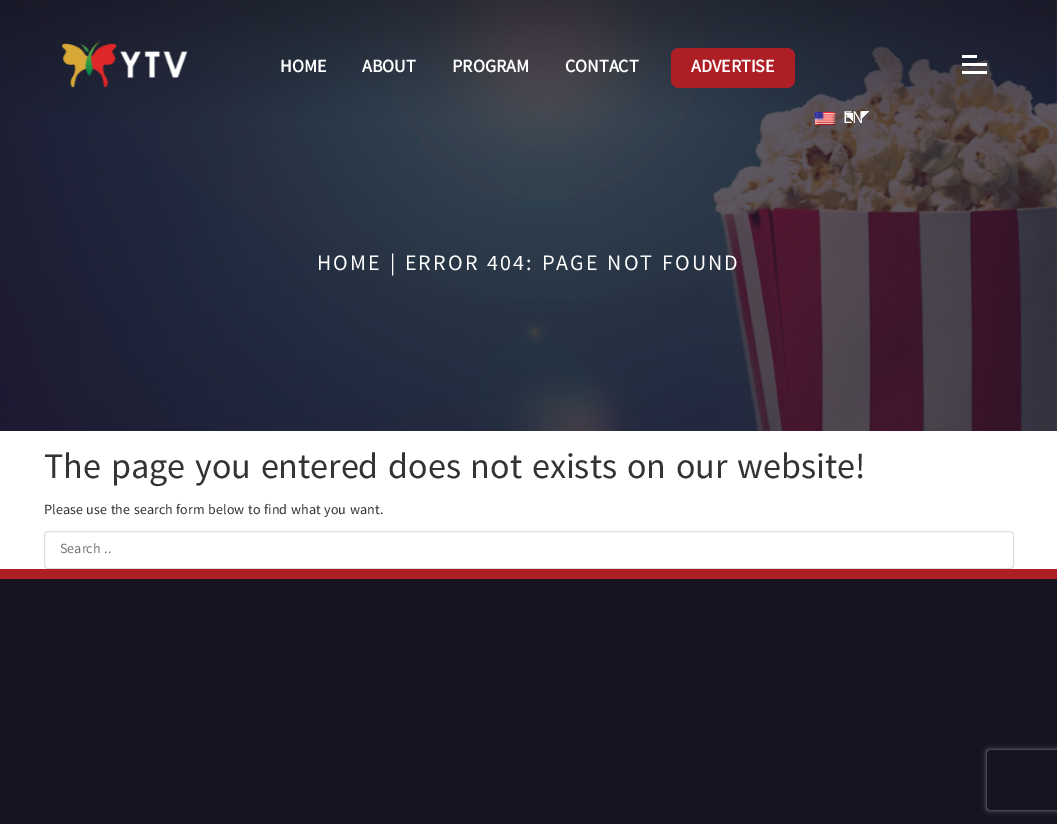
%!PS-Adobe-3.0
%%BoundingBox: 0 0 1057 824
%%LanguageLevel: 3
%%Pages: 1
%%EndComments
%%BeginProlog
/setink { dup -16 bitshift 255 div exch dup -8 bitshift 255 and 255 div exch 255 and 255 div setrgbcolor } def
/usefont { [ exch dup neg 0 0 3 -1 roll 0 0 ] selectfont } def
/setalpha { dup .setfillconstantalpha .setstrokeconstantalpha } def
/rrect { 5 dict begin { /r /h /w /y /x } { exch def } forall
  x r add y moveto x w add y 2 copy h add r arct x w add y h add x 1 index r arct
  x y h add x y r arct x y 2 copy exch w add exch r arct closepath end } def
/softshadow { 12 dict begin { /a /b /q /h /w /y /x } { exch def } forall gsave /was 0 def
  9 -2 -9 { dup b mul 4 div /e exch def 1 sub .425 mul 2.718 exch exp 1 add a .99 .min exch div /now exch def
    1 1 now sub 1 was sub div sub setalpha /was now def
    w h .min e 2 mul add 0 gt { x e sub y e sub w e 2 mul add h e 2 mul add
      q e add b .6 mul add w h .min 2 div e add .min 0 .max rrect fill } if } for grestore end } def
/drawimage { 5 dict begin { /h /w /y /x /name } { exch def } forall
  gsave x y translate w h scale
  w h 8 [w 0 0 h 0 0] name (r) file false 3 colorimage grestore end } def
%%EndProlog
%%BeginSetup
<< /PageSize [1057 824] /PageUsesTransparency true >> setpagedevice
%%EndSetup
%%Page: 1 1
0 .pushpdf14devicefilter
0 824 translate 1 -1 scale
4 setmiterlimit
16#FFFFFF setink
0 0 1057 824 rectfill
(img3.raw) 0 0 1057 431 drawimage
(img1.raw) 61 41 127 47 drawimage
/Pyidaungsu-Bold 18 usefont
[
    [(HOME) 280 72]
    [(ABOUT) 362 72]
    [(PROGRAM) 452 72]
    [(CONTACT) 565 72]
] { aload pop moveto show } forall
16#AD1F25 setink
671 48 124 40 8 rrect fill
16#FFFFFF setink
691 72 moveto (ADVERTISE) show
[
    [962 55 15 3 16#FFFFFF]
    [962 63 25 3 16#FFFFFF]
    [962 71 25 3 16#FFFFFF]
] { aload pop setink rectfill } forall
(img2.raw) 815 111 21 15 drawimage
/Pyidaungsu-Regular 18 usefont
843 123 moveto (EN) show
/Pyidaungsu-Regular 22 usefont
317 270 moveto 2 0 (HOME | ERROR 404: PAGE NOT FOUND) ashow
/Pyidaungsu-Regular 36 usefont
16#333333 setink
44 478 moveto (The page you entered does not exists on our website!) show
/Pyidaungsu-Regular 14 usefont
44 514 moveto (Please use the search form below to find what you want.) show
16#DDDDDD setink
44.5 531.5 969 37 3.5 rrect stroke
16#757575 setink
60 553 moveto (Search ..) show
16#171422 setink
0 579 1057 245 rectfill
16#AD1F25 setink
0 569 1057 10 rectfill
gsave
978 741 moveto 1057 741 lineto 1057 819 lineto 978 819 lineto closepath 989 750 moveto 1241 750 lineto 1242 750 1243 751 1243 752 curveto 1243 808 lineto 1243 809 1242 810 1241 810 curveto 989 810 lineto 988 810 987 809 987 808 curveto 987 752 lineto 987 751 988 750 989 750 curveto closepath eoclip newpath
16#808080 setink
987 750 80 60 2 2.5 1 softshadow
grestore
.poppdf14devicefilter showpage
%%EOF
